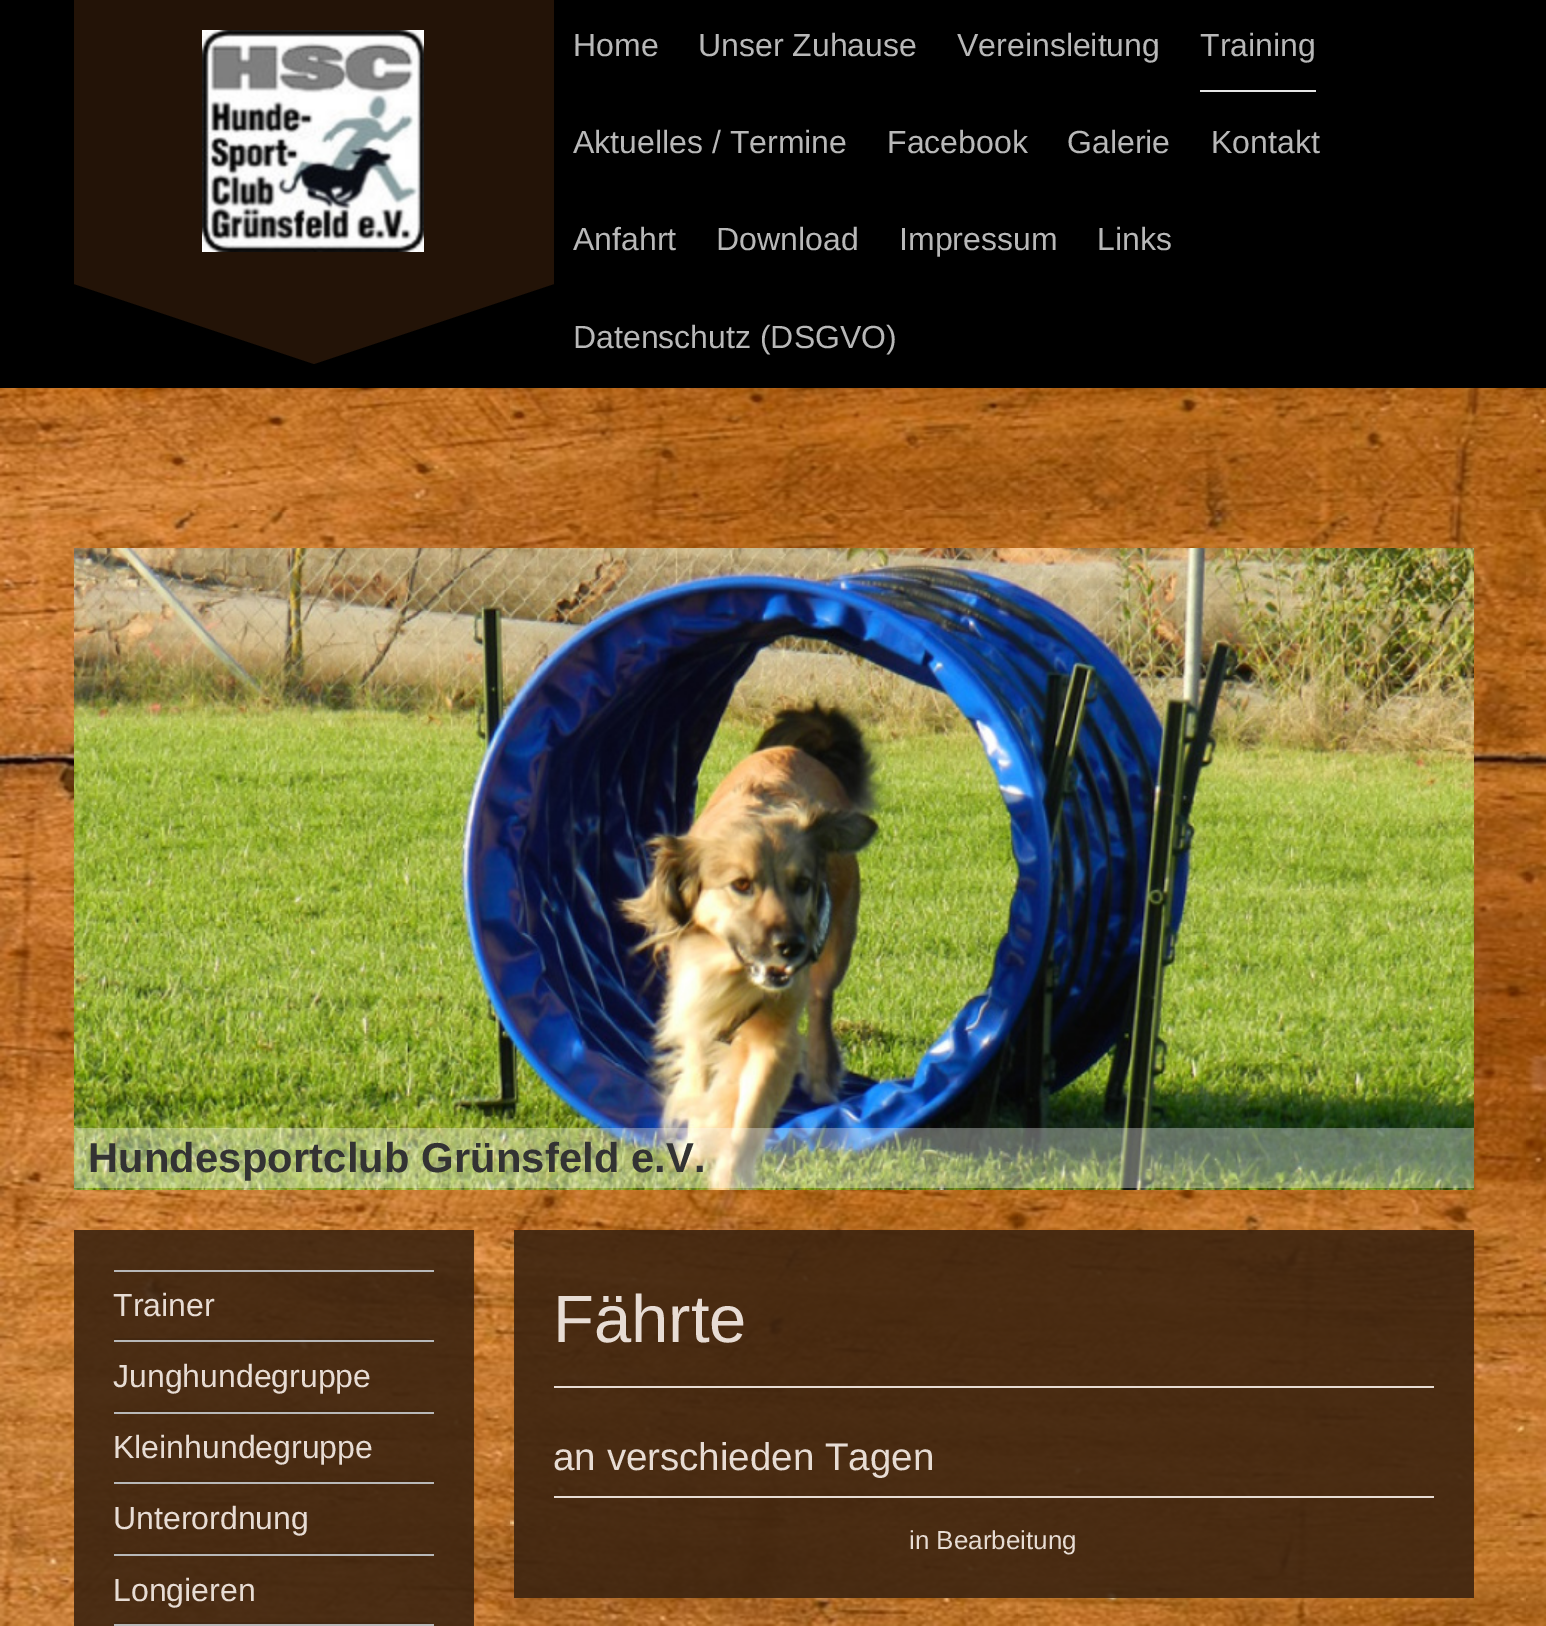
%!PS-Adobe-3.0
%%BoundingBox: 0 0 1546 1626
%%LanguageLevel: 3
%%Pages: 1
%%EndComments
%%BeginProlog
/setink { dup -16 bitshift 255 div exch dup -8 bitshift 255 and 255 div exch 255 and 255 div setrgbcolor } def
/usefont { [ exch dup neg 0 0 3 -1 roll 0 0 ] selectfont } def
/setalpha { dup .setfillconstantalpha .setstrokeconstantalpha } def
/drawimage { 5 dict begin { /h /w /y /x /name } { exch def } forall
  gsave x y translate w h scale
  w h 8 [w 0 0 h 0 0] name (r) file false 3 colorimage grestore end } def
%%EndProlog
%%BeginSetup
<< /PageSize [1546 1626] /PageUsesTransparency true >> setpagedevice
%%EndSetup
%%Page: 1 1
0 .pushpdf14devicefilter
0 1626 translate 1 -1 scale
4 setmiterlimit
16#FFFFFF setink
0 0 1546 1626 rectfill
(img1.raw) 0 388 1546 1238 drawimage
16#000000 setink
0 0 1546 388 rectfill
16#231307 setink
74 0 480 284 rectfill
(img2.raw) 202 30 222 222 drawimage
74 284 moveto 554 284 lineto 314 364 lineto closepath fill
/LiberationSans-Regular 32 usefont
16#B8B8B8 setink
[
    [(Home) 573 56]
    [(Unser Zuhause) 698 56]
    [(Vereinsleitung) 957 56]
] { aload pop moveto show } forall
16#E6E6E6 setink
1200 90 116 2 rectfill
16#B8B8B8 setink
[
    [(Training) 1200 56]
    [(Aktuelles / Termine) 573 153]
    [(Facebook) 887 153]
    [(Galerie) 1067 153]
    [(Kontakt) 1211 153]
    [(Anfahrt) 573 250]
    [(Download) 716 250]
    [(Impressum) 899 250]
    [(Links) 1097 250]
    [(Datenschutz \(DSGVO\)) 573 348]
] { aload pop moveto show } forall
(img3.raw) 74 548 1400 642 drawimage
0.34 setalpha
16#FFFFFF setink
74 1128 1400 60 rectfill
/LiberationSans-Bold 41.75 usefont
1 setalpha
16#333333 setink
88 1172 moveto 0.1 0 (Hundesportclub Grünsfeld e.V.) ashow
0.9 setalpha
[
    [74 1230 400 396 16#3C230F]
] { aload pop setink rectfill } forall
1 setalpha
[
    [114 1270 320 2 16#B8B8B8]
    [114 1340 320 2 16#B8B8B8]
] { aload pop setink rectfill } forall
0.1 setalpha
16#000000 setink
434 1340 moveto 114 1340 lineto 114 1338 lineto 426 1338 lineto closepath fill
/LiberationSans-Regular 32 usefont
1 setalpha
16#E7DCD4 setink
113 1316 moveto (Trainer) show
16#B8B8B8 setink
114 1412 320 2 rectfill
0.1 setalpha
16#000000 setink
434 1412 moveto 114 1412 lineto 114 1410 lineto 426 1410 lineto closepath fill
1 setalpha
16#E7DCD4 setink
113 1387 moveto (Junghundegruppe) show
16#B8B8B8 setink
114 1482 320 2 rectfill
0.1 setalpha
16#000000 setink
434 1482 moveto 114 1482 lineto 114 1480 lineto 426 1480 lineto closepath fill
1 setalpha
16#E7DCD4 setink
113 1458 moveto (Kleinhundegruppe) show
16#B8B8B8 setink
114 1554 320 2 rectfill
0.1 setalpha
16#000000 setink
434 1554 moveto 114 1554 lineto 114 1552 lineto 426 1552 lineto closepath fill
1 setalpha
16#E7DCD4 setink
113 1529 moveto (Unterordnung) show
16#B8B8B8 setink
114 1624 320 2 rectfill
0.1 setalpha
16#000000 setink
434 1624 moveto 114 1624 lineto 114 1622 lineto 426 1622 lineto closepath fill
1 setalpha
16#E7DCD4 setink
113 1601 moveto (Longieren) show
0.9 setalpha
16#3C230F setink
514 1230 960 368 rectfill
1 setalpha
16#E7DCD4 setink
554 1386 880 2 rectfill
/LiberationSans-Regular 67 usefont
553 1342 moveto (Fährte) show
554 1496 880 2 rectfill
/LiberationSans-Regular 38.5 usefont
553 1470 moveto (an verschieden Tagen) show
/LiberationSans-Regular 26 usefont
909 1549 moveto (in Bearbeitung) show
.poppdf14devicefilter showpage
%%EOF
